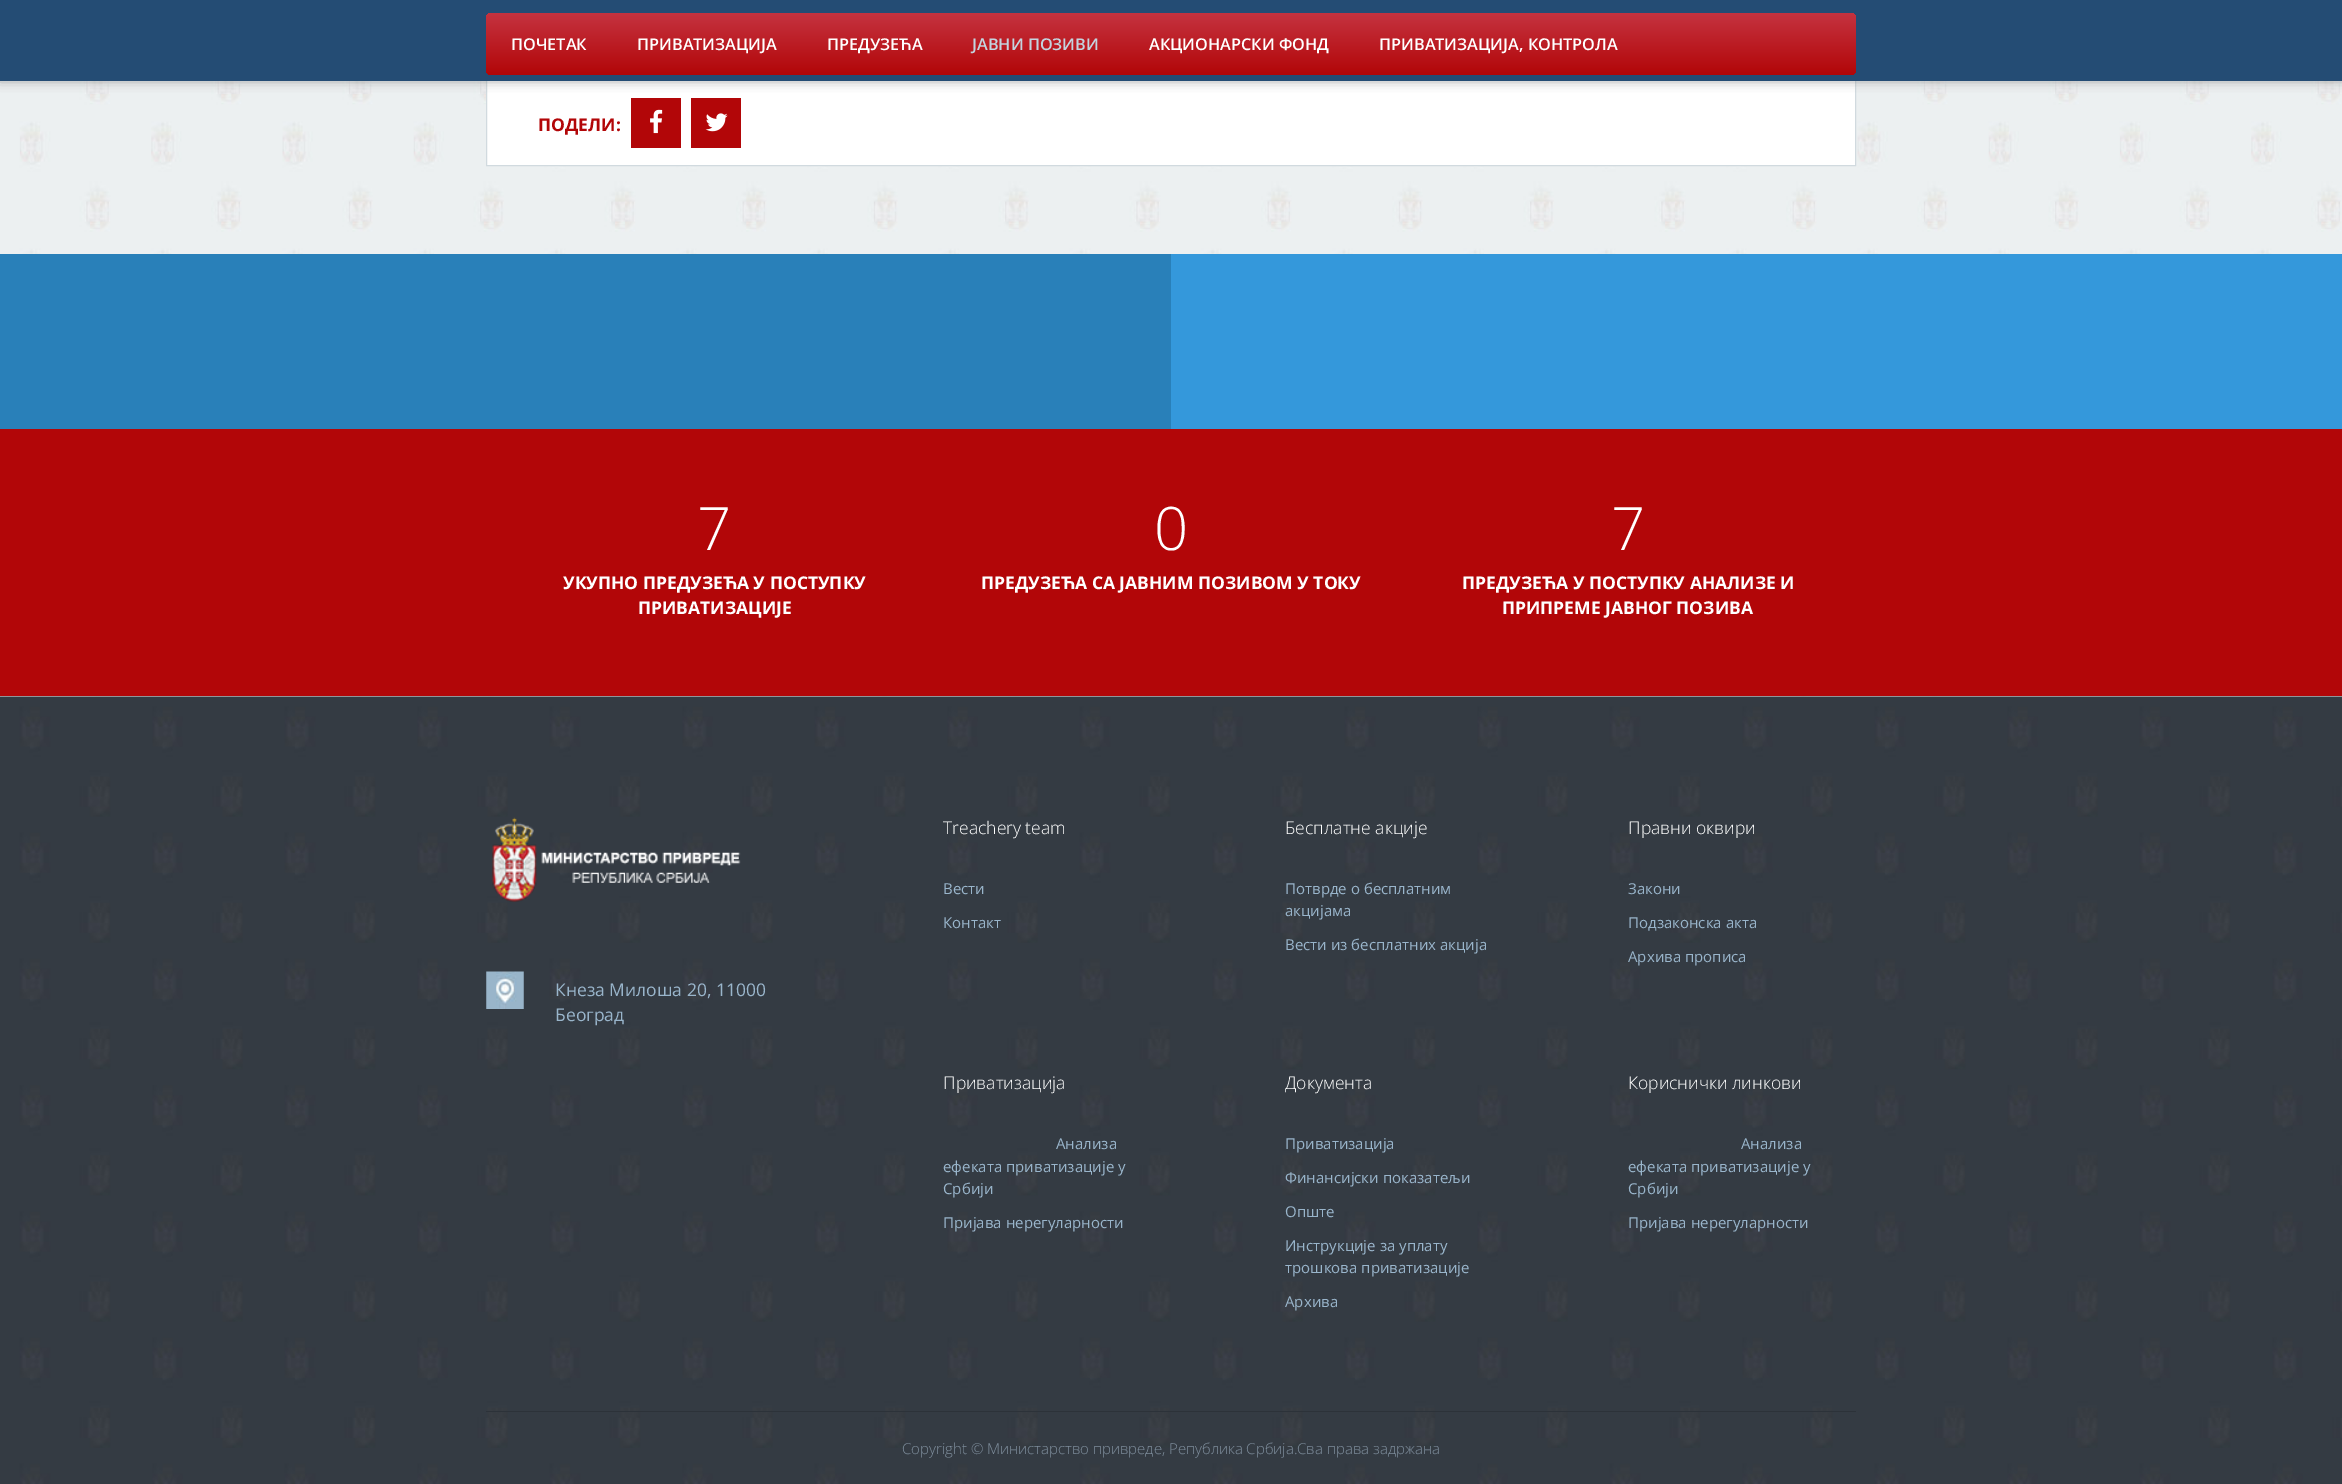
%!PS-Adobe-3.0
%%BoundingBox: 0 0 2342 1484
%%LanguageLevel: 3
%%Pages: 1
%%EndComments
%%BeginProlog
/setink { dup -16 bitshift 255 div exch dup -8 bitshift 255 and 255 div exch 255 and 255 div setrgbcolor } def
/usefont { [ exch dup neg 0 0 3 -1 roll 0 0 ] selectfont } def
/setalpha { dup .setfillconstantalpha .setstrokeconstantalpha } def
/rrect { 5 dict begin { /r /h /w /y /x } { exch def } forall
  x r add y moveto x w add y 2 copy h add r arct x w add y h add x 1 index r arct
  x y h add x y r arct x y 2 copy exch w add exch r arct closepath end } def
/softshadow { 12 dict begin { /a /b /q /h /w /y /x } { exch def } forall gsave /was 0 def
  9 -2 -9 { dup b mul 4 div /e exch def 1 sub .425 mul 2.718 exch exp 1 add a .99 .min exch div /now exch def
    1 1 now sub 1 was sub div sub setalpha /was now def
    w h .min e 2 mul add 0 gt { x e sub y e sub w e 2 mul add h e 2 mul add
      q e add b .6 mul add w h .min 2 div e add .min 0 .max rrect fill } if } for grestore end } def
/drawimage { 5 dict begin { /h /w /y /x /name } { exch def } forall
  gsave x y translate w h scale
  w h 8 [w 0 0 h 0 0] name (r) file false 3 colorimage grestore end } def
%%EndProlog
%%BeginSetup
<< /PageSize [2342 1484] /PageUsesTransparency true >> setpagedevice
%%EndSetup
%%Page: 1 1
0 .pushpdf14devicefilter
0 1484 translate 1 -1 scale
4 setmiterlimit
16#FFFFFF setink
0 0 2342 1484 rectfill
(img1.raw) 0 81 2342 616 drawimage
487 81 1368 84 rectfill
16#D1DADF setink
486.5 -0.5 1369 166 rectstroke
16#808080 setink
0 -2 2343 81 0 6 1 softshadow
16#244C74 setink
0 0 2342 81 rectfill
gsave 486 13 1370 62 6 rrect clip newpath
<< /ShadingType 2 /ColorSpace /DeviceRGB /Coords [1171 12 1171 75] /Extend [true true] /Function << /FunctionType 2 /Domain [0 1] /C0 [0.773 0.204 0.255] /C1 [0.698 0.024 0.031] /N 1 >> >> shfill grestore
/OpenSans-SemiBold 16.25 usefont
16#FFFFFF setink
[
    [(ПОЧЕТАК) 511 50]
    [(ПРИВАТИЗАЦИЈА) 637 50]
    [(ПРЕДУЗЕЋА) 827 50]
] { aload pop moveto show } forall
16#C3D4DF setink
972 50 moveto (ЈАВНИ ПОЗИВИ) show
16#FFFFFF setink
1149 50 moveto (АКЦИОНАРСКИ ФОНД) show
1379 50 moveto (ПРИВАТИЗАЦИЈА, КОНТРОЛА) show
/OpenSans-Bold 17.5 usefont
16#B20608 setink
538 131 moveto (ПОДЕЛИ:) show
631 98 50 50 rectfill
(img2.raw) 650 109 13 25 drawimage
691 98 50 50 rectfill
(img3.raw) 705 113 23 19 drawimage
[
    [0 254 1171 175 16#2980B9]
    [1171 254 1171 175 16#3498DB]
    [0 429 2342 267 16#B20608]
] { aload pop setink rectfill } forall
/OpenSans-Light 60 usefont
16#FFFFFF setink
697 550 moveto (7) show
/OpenSans-Bold 17.5 usefont
563 589 moveto (УКУПНО ПРЕДУЗЕЋА У ПОСТУПКУ) show
638 614 moveto (ПРИВАТИЗАЦИЈЕ) show
/OpenSans-Light 60 usefont
1154 550 moveto (0) show
/OpenSans-Bold 17.5 usefont
981 589 moveto (ПРЕДУЗЕЋА СА ЈАВНИМ ПОЗИВОМ У ТОКУ) show
/OpenSans-Light 60 usefont
1611 550 moveto (7) show
/OpenSans-Bold 17.5 usefont
1462 589 moveto (ПРЕДУЗЕЋА У ПОСТУПКУ АНАЛИЗЕ И) show
1502 614 moveto (ПРИПРЕМЕ ЈАВНОГ ПОЗИВА) show
(img4.raw) 0 696 2342 788 drawimage
(img5.raw) 492 817 249 85 drawimage
(img6.raw) 486 971 38 38 drawimage
/OpenSans-Regular 17.5 usefont
16#99B5CB setink
555 996 moveto (Кнеза Милоша 20, 11000) show
555 1021 moveto (Београд) show
/OpenSans-Light 17.5 usefont
16#FFFFFF setink
943 834 moveto (Treachery team) show
/OpenSans-Regular 15 usefont
16#99B5CB setink
943 894 moveto (Вести) show
943 928 moveto (Контакт) show
/OpenSans-Light 17.5 usefont
16#FFFFFF setink
943 1089 moveto (Приватизација) show
/OpenSans-Regular 15 usefont
16#99B5CB setink
[
    [(Анализа) 1056 1149]
    [(ефеката приватизације у) 943 1172]
    [(Србији) 943 1194]
    [(Пријава нерегуларности) 943 1228]
] { aload pop moveto show } forall
/OpenSans-Light 17.5 usefont
16#FFFFFF setink
1285 834 moveto (Бесплатне акције) show
/OpenSans-Regular 15 usefont
16#99B5CB setink
[
    [(Потврде о бесплатним) 1285 894]
    [(акцијама) 1285 916]
    [(Вести из бесплатних акција) 1285 950]
] { aload pop moveto show } forall
/OpenSans-Light 17.5 usefont
16#FFFFFF setink
1285 1089 moveto (Документа) show
/OpenSans-Regular 15 usefont
16#99B5CB setink
[
    [(Приватизација) 1285 1149]
    [(Финансијски показатељи) 1285 1183]
    [(Опште) 1285 1217]
    [(Инструкције за уплату) 1285 1251]
    [(трошкова приватизације) 1285 1273]
    [(Архива) 1285 1307]
] { aload pop moveto show } forall
/OpenSans-Light 17.5 usefont
16#FFFFFF setink
1628 834 moveto (Правни оквири) show
/OpenSans-Regular 15 usefont
16#99B5CB setink
[
    [(Закони) 1628 894]
    [(Подзаконска акта) 1628 928]
    [(Архива прописa) 1628 962]
] { aload pop moveto show } forall
/OpenSans-Light 17.5 usefont
16#FFFFFF setink
1628 1089 moveto (Кориснички линкови) show
/OpenSans-Regular 15 usefont
16#99B5CB setink
[
    [(Анализа) 1741 1149]
    [(ефеката приватизације у) 1628 1172]
    [(Србији) 1628 1194]
    [(Пријава нерегуларности) 1628 1228]
] { aload pop moveto show } forall
16#2C3239 setink
486 1411 1370 1 rectfill
/OpenSans-Light 15 usefont
16#7E8D9C setink
902 1454 moveto (Copyright © Министарство привреде, Република Србија.Сва права задржана) show
.poppdf14devicefilter showpage
%%EOF
